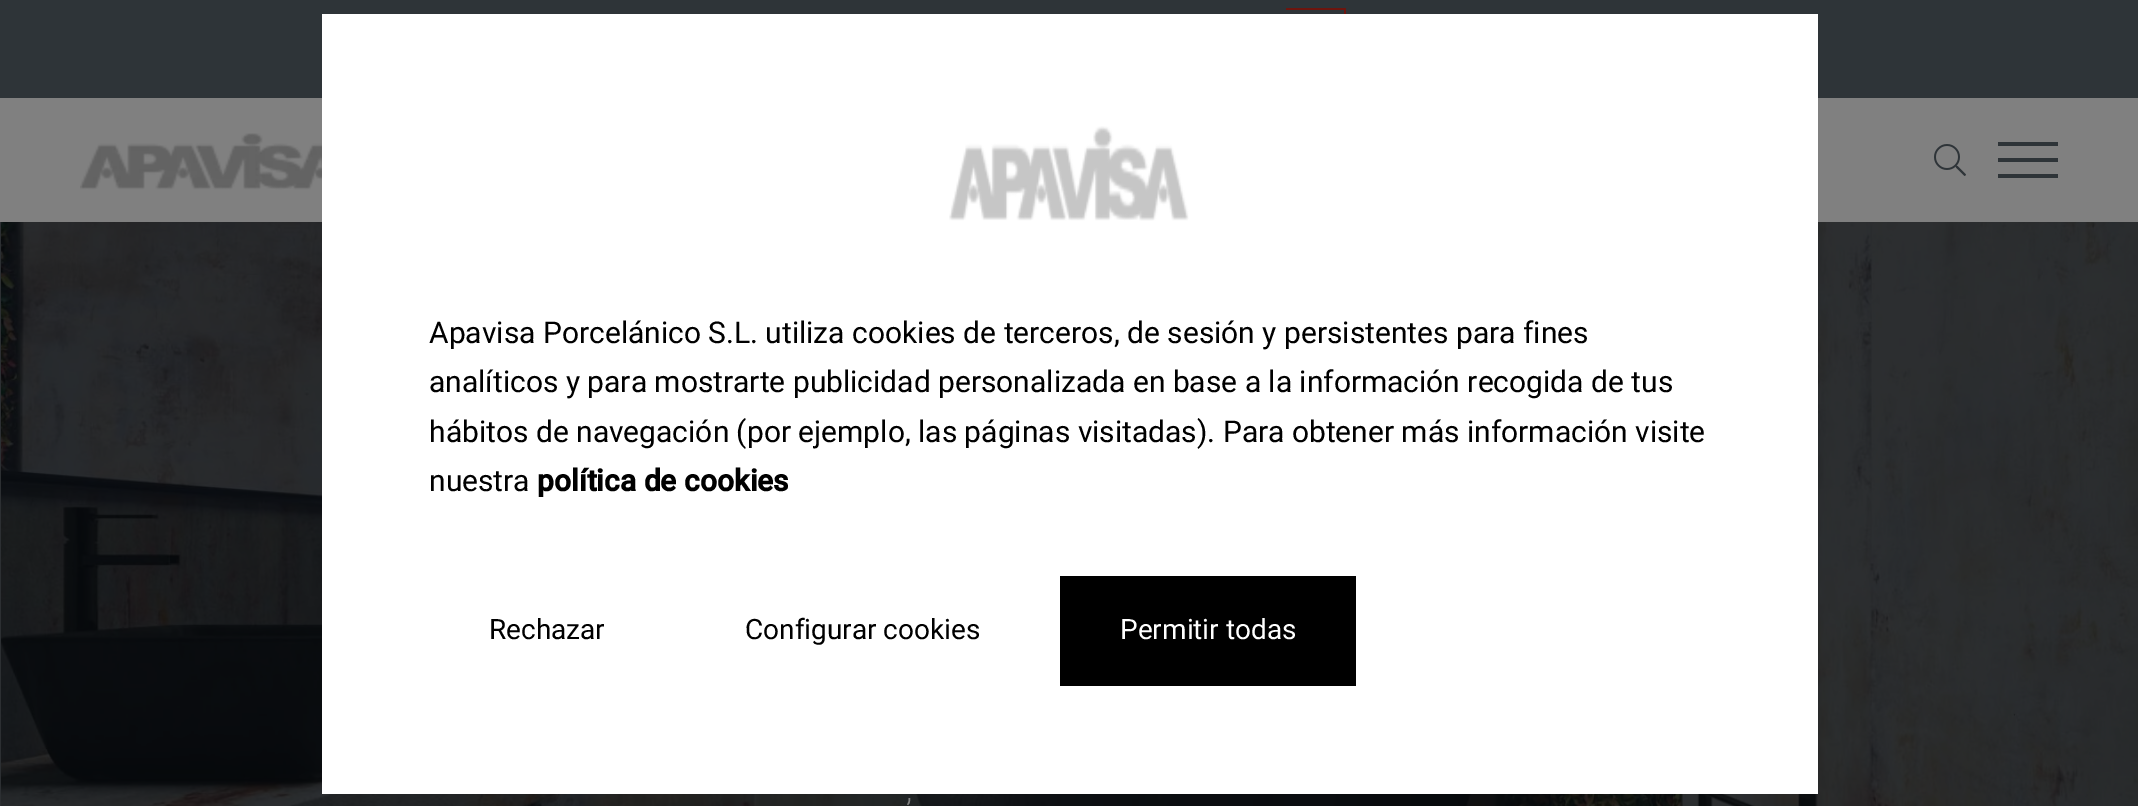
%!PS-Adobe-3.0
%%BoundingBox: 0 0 2138 806
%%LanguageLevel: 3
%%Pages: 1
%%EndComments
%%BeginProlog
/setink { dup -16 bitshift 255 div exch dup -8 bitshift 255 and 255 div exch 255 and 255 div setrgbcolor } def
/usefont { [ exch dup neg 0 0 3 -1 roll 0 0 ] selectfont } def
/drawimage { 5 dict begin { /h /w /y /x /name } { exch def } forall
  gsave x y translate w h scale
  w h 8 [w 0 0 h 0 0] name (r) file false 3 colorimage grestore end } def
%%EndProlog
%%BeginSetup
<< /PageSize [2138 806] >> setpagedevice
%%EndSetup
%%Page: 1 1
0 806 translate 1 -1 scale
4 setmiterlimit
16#2C2F32 setink
0 0 2138 806 rectfill
[
    [0 98 2138 124 16#808080]
    [0 0 2138 98 16#2E3438]
    [1286 8 60 2 16#6D150E]
    [1344 8 2 6 16#6D150E]
] { aload pop setink rectfill } forall
(img1.raw) 80 133 242 57 drawimage
(img2.raw) 1934 144 32 32 drawimage
[
    [1998 142 60 4 16#2E3438]
    [1998 158 60 4 16#2E3438]
    [1998 174 60 4 16#2E3438]
] { aload pop setink rectfill } forall
(img4.raw) 1 222 2137 584 drawimage
16#FFFFFF setink
322 14 1496 780 rectfill
(img3.raw) 949 126 240 95 drawimage
/Roboto-Regular 30 usefont
16#000000 setink
[
    [(Apavisa Porcelánico S.L. utiliza cookies de terceros, de sesión y persistentes para fines) 429 343]
    [(analíticos y para mostrarte publicidad personalizada en base a la información recogida de tus) 429 392]
    [(hábitos de navegación \(por ejemplo, las páginas visitadas\). Para obtener más información visite) 429 442]
    [(nuestra) 429 491]
] { aload pop moveto show } forall
/Roboto-Bold 30 usefont
537 491 moveto (política de cookies) show
/Roboto-Regular 28 usefont
489 639 moveto (Rechazar) show
745 639 moveto (Configurar cookies) show
1060 576 296 110 rectfill
16#FFFFFF setink
1120 639 moveto (Permitir todas) show
/Roboto-Light 32 usefont
16#808080 setink
906 801 moveto (,) show
showpage
%%EOF
